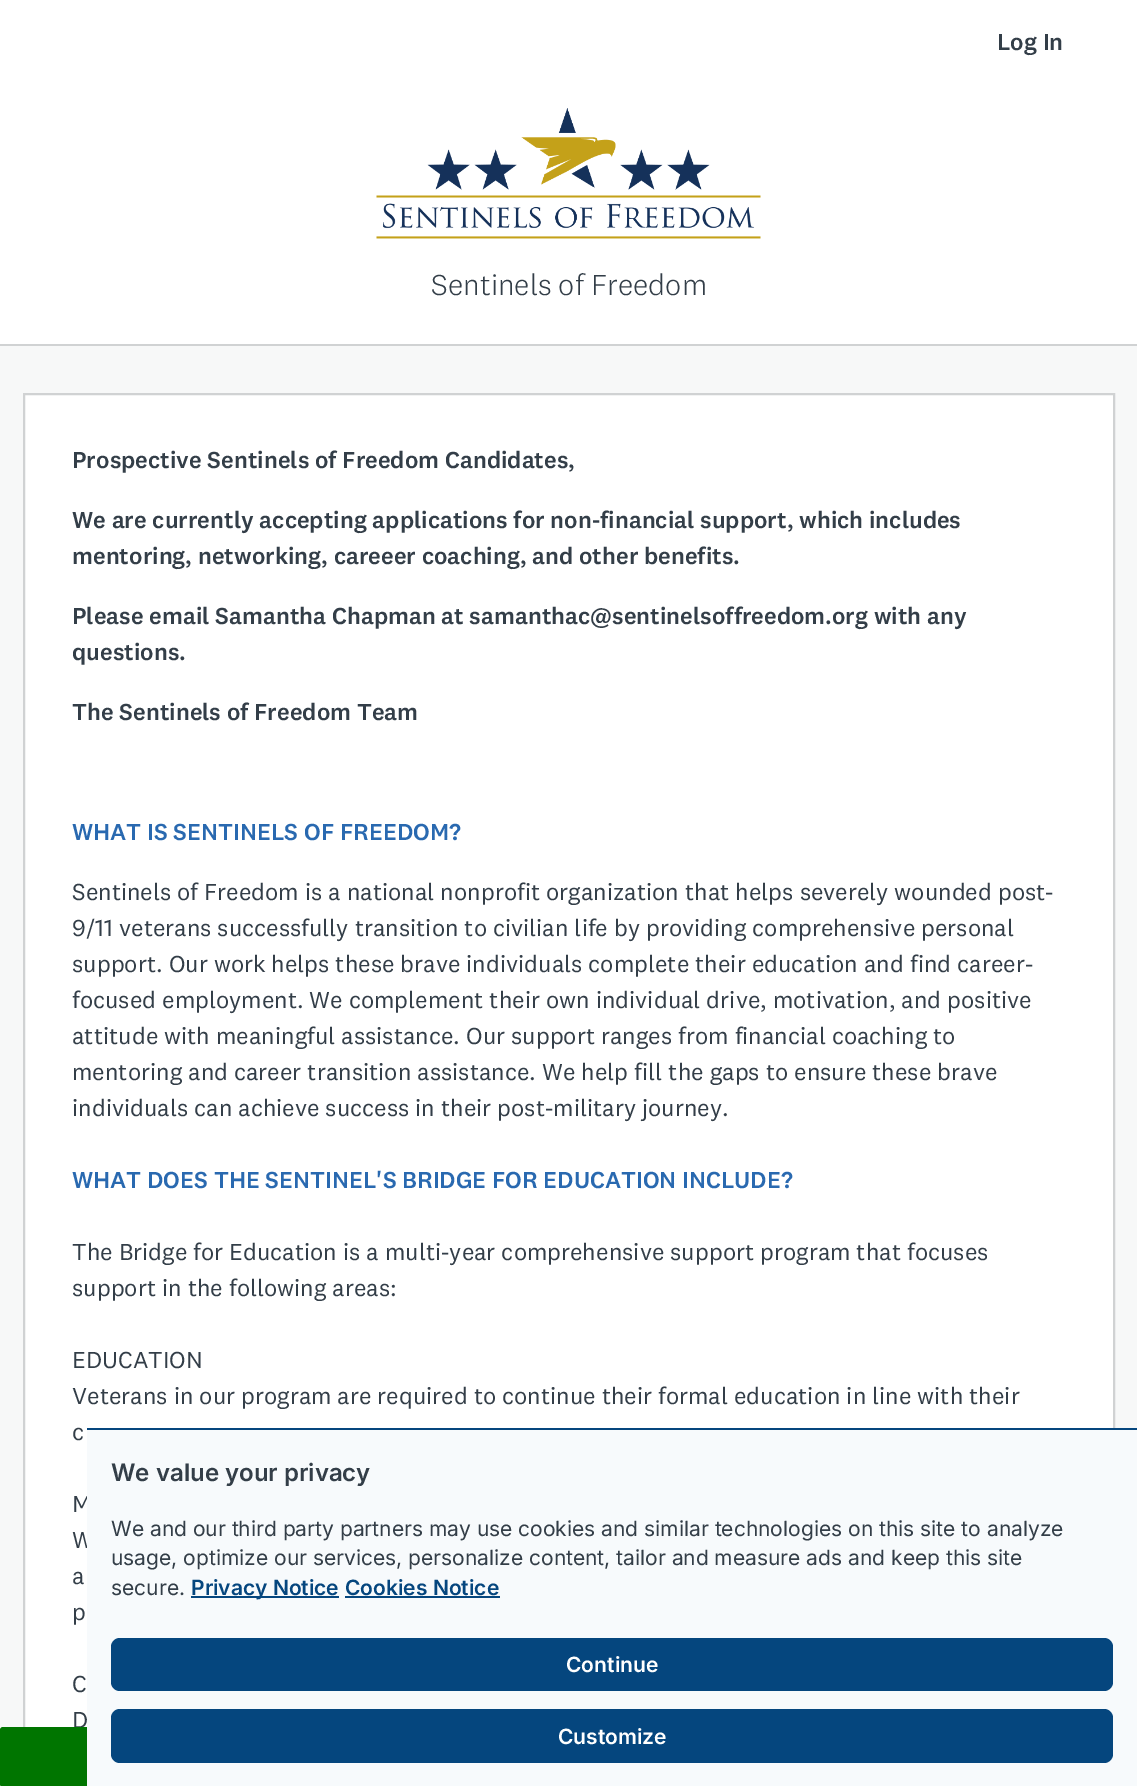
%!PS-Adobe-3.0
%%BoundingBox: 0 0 1137 1786
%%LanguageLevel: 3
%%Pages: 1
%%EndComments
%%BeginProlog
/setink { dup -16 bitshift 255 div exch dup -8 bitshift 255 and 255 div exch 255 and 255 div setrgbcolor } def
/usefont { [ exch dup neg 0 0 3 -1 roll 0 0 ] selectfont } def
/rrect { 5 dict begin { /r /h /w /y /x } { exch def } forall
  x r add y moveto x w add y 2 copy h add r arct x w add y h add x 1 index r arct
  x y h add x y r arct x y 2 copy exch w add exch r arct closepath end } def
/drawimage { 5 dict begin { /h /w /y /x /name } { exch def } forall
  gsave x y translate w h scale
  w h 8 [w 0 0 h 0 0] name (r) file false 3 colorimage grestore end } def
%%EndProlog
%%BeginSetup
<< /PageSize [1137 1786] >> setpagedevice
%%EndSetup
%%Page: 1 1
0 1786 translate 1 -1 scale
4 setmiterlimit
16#F7F8F8 setink
0 0 1137 1786 rectfill
16#FFFFFF setink
0 0 1137 344 rectfill
/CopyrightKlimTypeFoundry-Medium 24 usefont
16#333E48 setink
997 50 moveto (Log In) show
16#D0D2D3 setink
0 344 1137 2 rectfill
(img1.raw) 376 108 385 131 drawimage
/CopyrightKlimTypeFoundry-Light 30 usefont
16#333E48 setink
431 295 moveto (Sentinels of Freedom) show
16#FFFFFF setink
25 395 1088 1332 rectfill
16#D0D2D3 setink
2 setlinewidth
24 394 1090 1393 rectstroke
/CopyrightKlimTypeFoundry-Medium 24 usefont
16#333E48 setink
[
    [(Prospective Sentinels of Freedom Candidates,) 72 468]
    [(We are currently accepting applications for non-financial support, which includes) 72 528]
    [(mentoring, networking, careeer coaching, and other benefits.) 72 564]
    [(Please email Samantha Chapman at samanthac@sentinelsoffreedom.org with any) 72 624]
    [(questions.) 72 660]
    [(The Sentinels of Freedom Team) 72 720]
] { aload pop moveto show } forall
16#2969B0 setink
72 840 moveto (WHAT IS SENTINELS OF FREEDOM?) show
/CopyrightKlimTypeFoundry-Regular 24 usefont
16#333E48 setink
[
    [(Sentinels of Freedom is a national nonprofit organization that helps severely wounded post-) 72 900]
    [(9/11 veterans successfully transition to civilian life by providing comprehensive personal) 72 936]
    [(support. Our work helps these brave individuals complete their education and find career-) 72 972]
    [(focused employment. We complement their own individual drive, motivation, and positive) 72 1008]
    [(attitude with meaningful assistance. Our support ranges from financial coaching to) 72 1044]
    [(mentoring and career transition assistance. We help fill the gaps to ensure these brave) 72 1080]
    [(individuals can achieve success in their post-military journey.) 72 1116]
] { aload pop moveto show } forall
/CopyrightKlimTypeFoundry-Medium 24 usefont
16#2969B0 setink
72 1188 moveto (WHAT DOES THE SENTINEL'S BRIDGE FOR EDUCATION INCLUDE?) show
/CopyrightKlimTypeFoundry-Regular 24 usefont
16#333E48 setink
[
    [(The Bridge for Education is a multi-year comprehensive support program that focuses) 72 1260]
    [(support in the following areas:) 72 1296]
    [(EDUCATION) 72 1368]
    [(Veterans in our program are required to continue their formal education in line with their) 72 1404]
    [(c) 72 1440]
    [(M) 72 1512]
    [(W) 72 1548]
    [(a) 72 1584]
    [(p) 72 1620]
    [(C) 72 1692]
    [(D) 72 1728]
] { aload pop moveto show } forall
16#007500 setink
0 1727 1137 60 3 rrect fill
16#F7FAFC setink
87 1430 1050 356 rectfill
16#05467E setink
87 1428 1050 2 rectfill
/Inter-SemiBold 24 usefont
16#333E48 setink
111 1481 moveto (We value your privacy) show
/Inter-Regular 21 usefont
[
    [(We and our third party partners may use cookies and similar technologies on this site to analyze) 111 1536]
    [(usage, optimize our services, personalize content, tailor and measure ads and keep this site) 111 1565]
    [(secure.) 111 1595]
] { aload pop moveto show } forall
16#05467E setink
191 1596 148 2 rectfill
/Inter-SemiBold 21 usefont
191 1595 moveto (Privacy Notice) show
345 1595 moveto (Cookies Notice) show
345 1596 155 2 rectfill
111 1638 1002 53 9 rrect fill
16#FFFFFF setink
566 1672 moveto (Continue) show
16#05467E setink
111 1709 1002 54 9 rrect fill
16#FFFFFF setink
558 1744 moveto (Customize) show
showpage
%%EOF
